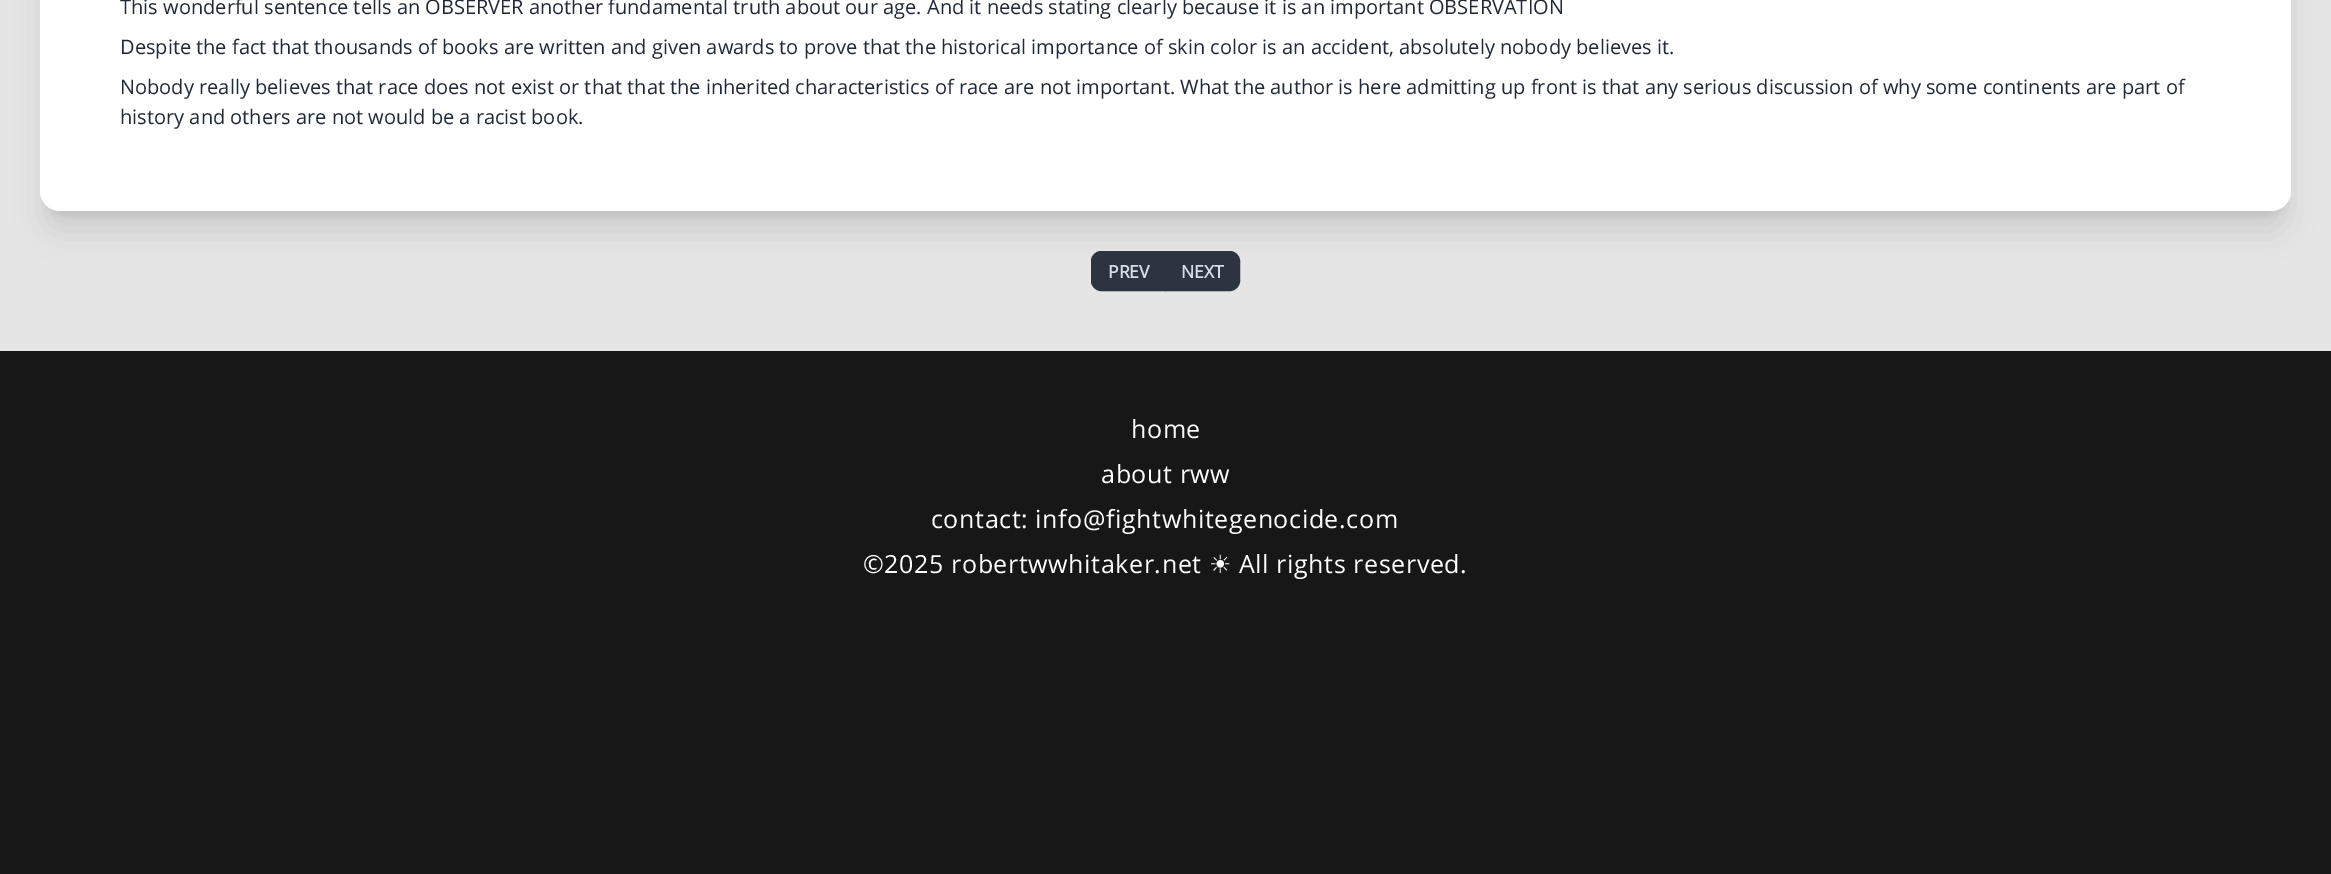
%!PS-Adobe-3.0
%%BoundingBox: 0 0 2331 874
%%LanguageLevel: 3
%%Pages: 1
%%EndComments
%%BeginProlog
/setink { dup -16 bitshift 255 div exch dup -8 bitshift 255 and 255 div exch 255 and 255 div setrgbcolor } def
/usefont { [ exch dup neg 0 0 3 -1 roll 0 0 ] selectfont } def
/setalpha { dup .setfillconstantalpha .setstrokeconstantalpha } def
/rrect { 5 dict begin { /r /h /w /y /x } { exch def } forall
  x r add y moveto x w add y 2 copy h add r arct x w add y h add x 1 index r arct
  x y h add x y r arct x y 2 copy exch w add exch r arct closepath end } def
/softshadow { 12 dict begin { /a /b /q /h /w /y /x } { exch def } forall gsave /was 0 def
  9 -2 -9 { dup b mul 4 div /e exch def 1 sub .425 mul 2.718 exch exp 1 add a .99 .min exch div /now exch def
    1 1 now sub 1 was sub div sub setalpha /was now def
    w h .min e 2 mul add 0 gt { x e sub y e sub w e 2 mul add h e 2 mul add
      q e add b .6 mul add w h .min 2 div e add .min 0 .max rrect fill } if } for grestore end } def
%%EndProlog
%%BeginSetup
<< /PageSize [2331 874] /PageUsesTransparency true >> setpagedevice
%%EndSetup
%%Page: 1 1
0 .pushpdf14devicefilter
0 874 translate 1 -1 scale
4 setmiterlimit
16#171717 setink
0 0 2331 874 rectfill
16#E5E5E5 setink
0 0 2331 351 rectfill
16#000000 setink
48 -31 2236 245 13 6 0.1 softshadow
46 -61 2239 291 14 15.5 0.1 softshadow
16#FFFFFF setink
40 -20 2251 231 20 rrect fill
/OpenSans-Regular 20 usefont
16#1F2937 setink
[
    [(This wonderful sentence tells an OBSERVER another fundamental truth about our age. And it needs stating clearly because it is an important OBSERVATION) 120 14]
    [(Despite the fact that thousands of books are written and given awards to prove that the historical importance of skin color is an accident, absolutely nobody believes it.) 120 54]
    [(Nobody really believes that race does not exist or that that the inherited characteristics of race are not important. What the author is here admitting up front is that any serious discussion of why some continents are part of) 120 94]
    [(history and others are not would be a racist book.) 120 124]
] { aload pop moveto show } forall
16#2B3440 setink
1101 251.5 moveto 1165.5 251.5 lineto 1165.5 290.5 lineto 1101 290.5 lineto 1096 290.5 1091.5 286 1091.5 281 curveto 1091.5 261 lineto 1091.5 256 1096 251.5 1101 251.5 curveto closepath gsave fill grestore
stroke
/OpenSans-Bold 17.5 usefont
16#D8DDE4 setink
1108 278 moveto (PREV) show
16#2B3440 setink
1165.5 251.5 moveto 1230 251.5 lineto 1235 251.5 1239.5 256 1239.5 261 curveto 1239.5 281 lineto 1239.5 286 1235 290.5 1230 290.5 curveto 1165.5 290.5 lineto closepath gsave fill grestore
stroke
16#D8DDE4 setink
1181 278 moveto (NEXT) show
/OpenSans-Regular 25 usefont
16#FFFFFF setink
1131 438 moveto 0.6 0 (home) ashow
1101 483 moveto 0.6 0 (about rww) ashow
931 528 moveto 0.6 0 (contact: info@fightwhitegenocide.com) ashow
863 573 moveto 0.6 0 (©2025 robertwwhitaker.net) ashow
/DejaVuSans-Regular 25 usefont
1209 573 moveto 0.6 0 (☀) ashow
/OpenSans-Regular 25 usefont
1239 573 moveto 0.6 0 (All rights reserved.) ashow
.poppdf14devicefilter showpage
%%EOF
